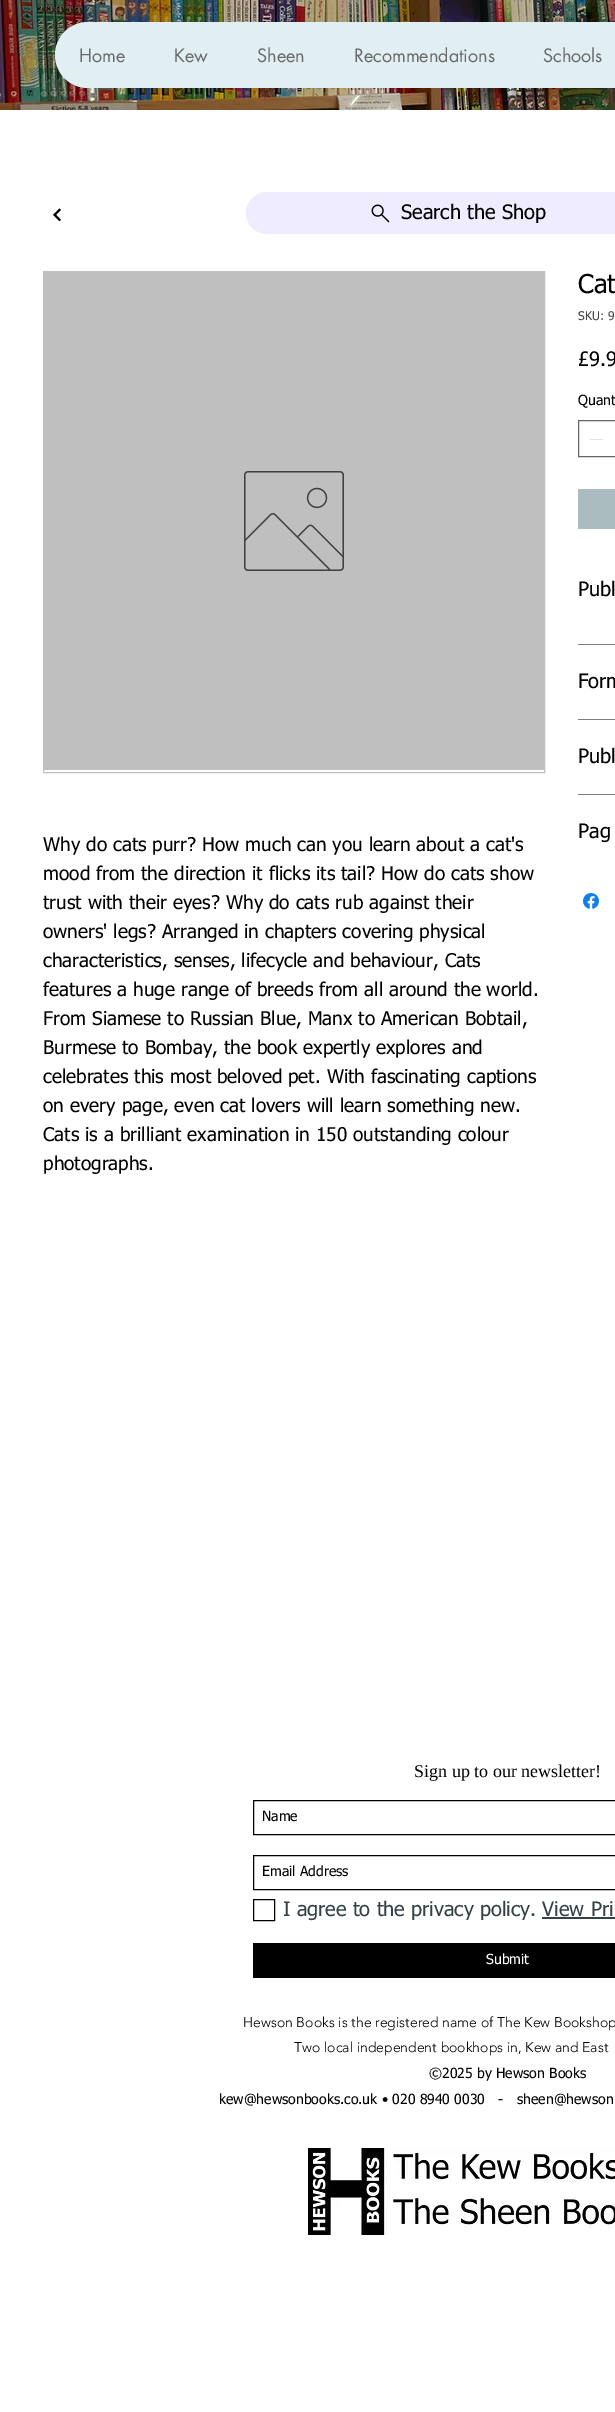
%!PS-Adobe-3.0
%%BoundingBox: 0 0 615 2412
%%LanguageLevel: 3
%%Pages: 1
%%EndComments
%%BeginProlog
/setink { dup -16 bitshift 255 div exch dup -8 bitshift 255 and 255 div exch 255 and 255 div setrgbcolor } def
/usefont { [ exch dup neg 0 0 3 -1 roll 0 0 ] selectfont } def
/rrect { 5 dict begin { /r /h /w /y /x } { exch def } forall
  x r add y moveto x w add y 2 copy h add r arct x w add y h add x 1 index r arct
  x y h add x y r arct x y 2 copy exch w add exch r arct closepath end } def
/drawimage { 5 dict begin { /h /w /y /x /name } { exch def } forall
  gsave x y translate w h scale
  w h 8 [w 0 0 h 0 0] name (r) file false 3 colorimage grestore end } def
%%EndProlog
%%BeginSetup
<< /PageSize [615 2412] >> setpagedevice
%%EndSetup
%%Page: 1 1
0 2412 translate 1 -1 scale
4 setmiterlimit
16#FFFFFF setink
0 0 615 2412 rectfill
(img1.raw) 0 0 615 110 drawimage
16#E1EFF2 setink
55 22 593 66 33 rrect fill
/futura-Regular 18 usefont
16#696969 setink
[
    [(Home) 79 62]
    [(Kew) 174 62]
    [(Sheen) 257 62]
    [(Recommendations) 354 62]
    [(Schools) 543 62]
] { aload pop moveto show } forall
(img2.raw) 53 208 8 14 drawimage
16#EEECFE setink
246 192 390 42 21 rrect fill
(img3.raw) 371 204 19 19 drawimage
/tahoma-Regular 20 usefont
16#000000 setink
401 219 moveto (Search the Shop) show
/tahoma-Regular 26 usefont
578 293 moveto (Cat) show
/tahoma-Regular 12 usefont
16#404040 setink
578 320 moveto (SKU: 9) show
/tahoma-Regular 20 usefont
16#000000 setink
578 366 moveto (£9.9) show
/tahoma-Regular 14 usefont
578 405 moveto (Quant) show
16#666666 setink
578.5 420.5 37 36 rectstroke
[
    [590 439 13 1 16#E3E3E3]
    [578 489 37 40 16#AABCBF]
    [578 644 37 1 16#808080]
] { aload pop setink rectfill } forall
/tahoma-Regular 20 usefont
16#000000 setink
578 596 moveto (Publ) show
16#808080 setink
578 719 37 1 rectfill
16#000000 setink
578 688 moveto (Form) show
16#808080 setink
578 794 37 1 rectfill
16#000000 setink
578 763 moveto (Publ) show
578 838 moveto (Pag) show
(img4.raw) 583 893 16 16 drawimage
16#BFBFBF setink
43.5 271.5 501 501 rectstroke
44 272 500 498 rectfill
(img5.raw) 244 471 100 100 drawimage
/tahoma-Regular 19 usefont
16#000000 setink
[
    [(Why do cats purr? How much can you learn about a cat's) 43 851]
    [(mood from the direction it flicks its tail? How do cats show) 43 880]
    [(trust with their eyes? Why do cats rub against their) 43 909]
    [(owners' legs? Arranged in chapters covering physical) 43 938]
    [(characteristics, senses, lifecycle and behaviour, Cats) 43 967]
    [(features a huge range of breeds from all around the world.) 43 996]
    [(From Siamese to Russian Blue, Manx to American Bobtail,) 43 1025]
    [(Burmese to Bombay, the book expertly explores and) 43 1054]
    [(celebrates this most beloved pet. With fascinating captions) 43 1083]
    [(on every page, even cat lovers will learn something new.) 43 1112]
    [(Cats is a brilliant examination in 150 outstanding colour) 43 1141]
    [(photographs.) 43 1170]
] { aload pop moveto show } forall
/LiberationSerif-Regular 18 usefont
414 1777 moveto (Sign up to our newsletter!) show
253.5 1800.5 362 34 rectstroke
/tahoma-Regular 14 usefont
262 1821 moveto (Name) show
253.5 1855.5 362 34 rectstroke
262 1876 moveto (Email Address) show
253.5 1899.5 21 21 rectstroke
/tahoma-Regular 20 usefont
16#344245 setink
283 1916 moveto (I agree to the privacy policy. View Pri) show
542 1917 73 2 rectfill
16#000000 setink
253 1943 362 35 rectfill
/tahoma-Regular 14 usefont
16#FFFFFF setink
486 1964 moveto (Submit) show
/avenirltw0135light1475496-Light 14 usefont
16#000000 setink
243 2027 moveto (Hewson Books is the registered name of The Kew Bookshop) show
294 2052 moveto (Two local independent bookhops in, Kew and East) show
/tahoma-Regular 14 usefont
[
    [(©2025 by Hewson Books) 429 2078]
    [(kew@hewsonbooks.co.uk • 020 8940 0030   -) 219 2104]
    [(sheen@hewson) 517 2104]
] { aload pop moveto show } forall
(img6.raw) 308 2148 307 87 drawimage
showpage
%%EOF
